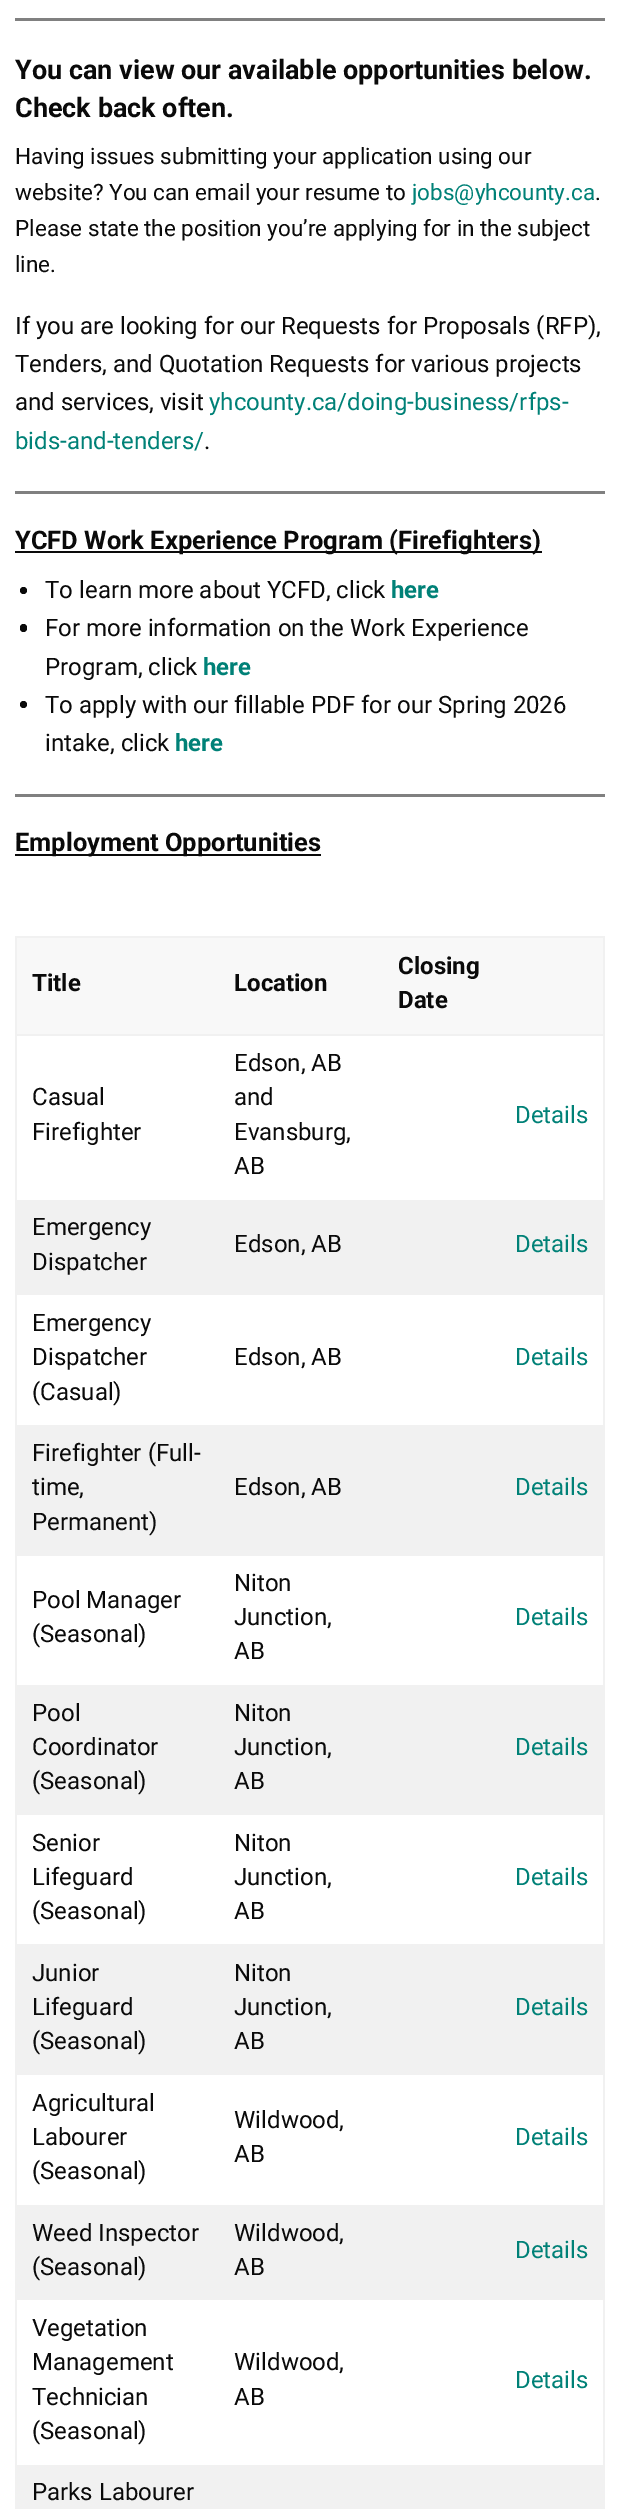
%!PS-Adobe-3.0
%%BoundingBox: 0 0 619 2509
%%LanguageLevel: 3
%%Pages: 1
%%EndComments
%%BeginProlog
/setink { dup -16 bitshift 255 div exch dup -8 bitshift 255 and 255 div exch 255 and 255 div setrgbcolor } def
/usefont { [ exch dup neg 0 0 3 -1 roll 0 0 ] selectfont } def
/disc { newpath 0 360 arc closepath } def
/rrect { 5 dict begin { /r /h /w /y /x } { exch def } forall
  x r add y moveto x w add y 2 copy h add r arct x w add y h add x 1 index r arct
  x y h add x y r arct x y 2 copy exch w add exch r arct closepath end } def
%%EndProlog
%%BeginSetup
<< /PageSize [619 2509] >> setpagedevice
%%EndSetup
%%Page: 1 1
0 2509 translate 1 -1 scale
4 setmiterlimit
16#FFFFFF setink
0 0 619 2509 rectfill
16#808080 setink
15 18 590 3 rectfill
/Roboto-Bold 27 usefont
16#0A0A0A setink
15 79 moveto (You can view our available opportunities below.) show
15 117 moveto (Check back often.) show
/Roboto-Regular 22.5 usefont
15 164 moveto (Having issues submitting your application using our) show
15 200 moveto (website? You can email your resume to) show
16#008177 setink
412 200 moveto (jobs@yhcounty.ca) show
16#0A0A0A setink
[
    [(.) 595 200]
    [(Please state the position you’re applying for in the subject) 15 236]
    [(line.) 15 272]
] { aload pop moveto show } forall
/Roboto-Regular 24 usefont
[
    [(If you are looking for our Requests for Proposals \(RFP\),) 15 334]
    [(Tenders, and Quotation Requests for various projects) 15 372]
    [(and services, visit) 15 410]
] { aload pop moveto show } forall
16#008177 setink
209 410 moveto (yhcounty.ca/doing-business/rfps-) show
15 449 moveto (bids-and-tenders/) show
16#0A0A0A setink
204 449 moveto (.) show
16#808080 setink
15 491 590 3 rectfill
16#0A0A0A setink
15 551 527 2 rectfill
/Roboto-Bold 25.5 usefont
15 549 moveto (YCFD Work Experience Program \(Firefighters\)) show
23.5 590.5 3.5 disc fill
/Roboto-Regular 24 usefont
45 598 moveto (To learn more about YCFD, click) show
/Roboto-Bold 24 usefont
16#008177 setink
391 598 moveto (here) show
16#0A0A0A setink
20 624 7 8 3.5 rrect fill
/Roboto-Regular 24 usefont
45 636 moveto (For more information on the Work Experience) show
45 675 moveto (Program, click) show
/Roboto-Bold 24 usefont
16#008177 setink
203 675 moveto (here) show
16#0A0A0A setink
23.5 704.5 3.5 disc fill
/Roboto-Regular 24 usefont
45 713 moveto (To apply with our fillable PDF for our Spring 2026) show
45 751 moveto (intake, click) show
/Roboto-Bold 24 usefont
16#008177 setink
175 751 moveto (here) show
16#808080 setink
15 794 590 3 rectfill
16#0A0A0A setink
15 854 306 2 rectfill
/Roboto-Bold 25.5 usefont
15 851 moveto (Employment Opportunities) show
[
    [17 938 586 96 16#F8F8F8]
    [15 936 590 2 16#F1F1F1]
    [15 1034 590 2 16#F1F1F1]
    [603 1034 2 1475 16#F1F1F1]
    [603 936 2 99 16#F1F1F1]
    [15 1034 2 1475 16#F1F1F1]
    [15 936 2 99 16#F1F1F1]
] { aload pop setink rectfill } forall
/Roboto-Bold 24 usefont
16#0A0A0A setink
[
    [(Title) 32 991]
    [(Location) 234 991]
    [(Closing) 398 974]
    [(Date) 398 1008]
] { aload pop moveto show } forall
/Roboto-Regular 24 usefont
[
    [(Casual) 32 1105]
    [(Firefighter) 32 1140]
    [(Edson, AB) 234 1071]
    [(and) 234 1105]
    [(Evansburg,) 234 1140]
    [(AB) 234 1174]
] { aload pop moveto show } forall
16#008177 setink
515 1123 moveto (Details) show
16#F1F1F1 setink
17 1200 586 95 rectfill
16#0A0A0A setink
[
    [(Emergency) 32 1235]
    [(Dispatcher) 32 1270]
    [(Edson, AB) 234 1252]
] { aload pop moveto show } forall
16#008177 setink
515 1252 moveto (Details) show
16#0A0A0A setink
[
    [(Emergency) 32 1331]
    [(Dispatcher) 32 1365]
    [(\(Casual\)) 32 1400]
    [(Edson, AB) 234 1365]
] { aload pop moveto show } forall
16#008177 setink
515 1365 moveto (Details) show
16#F1F1F1 setink
17 1425 586 131 rectfill
16#0A0A0A setink
[
    [(Firefighter \(Full-) 32 1461]
    [(time,) 32 1495]
    [(Permanent\)) 32 1530]
    [(Edson, AB) 234 1495]
] { aload pop moveto show } forall
16#008177 setink
515 1495 moveto (Details) show
16#0A0A0A setink
[
    [(Pool Manager) 32 1608]
    [(\(Seasonal\)) 32 1642]
    [(Niton) 234 1591]
    [(Junction,) 234 1625]
    [(AB) 234 1659]
] { aload pop moveto show } forall
16#008177 setink
515 1625 moveto (Details) show
16#F1F1F1 setink
17 1685 586 130 rectfill
16#0A0A0A setink
[
    [(Pool) 32 1721]
    [(Coordinator) 32 1755]
    [(\(Seasonal\)) 32 1789]
    [(Niton) 234 1721]
    [(Junction,) 234 1755]
    [(AB) 234 1789]
] { aload pop moveto show } forall
16#008177 setink
515 1755 moveto (Details) show
16#0A0A0A setink
[
    [(Senior) 32 1851]
    [(Lifeguard) 32 1885]
    [(\(Seasonal\)) 32 1919]
    [(Niton) 234 1851]
    [(Junction,) 234 1885]
    [(AB) 234 1919]
] { aload pop moveto show } forall
16#008177 setink
515 1885 moveto (Details) show
16#F1F1F1 setink
17 1944 586 131 rectfill
16#0A0A0A setink
[
    [(Junior) 32 1981]
    [(Lifeguard) 32 2015]
    [(\(Seasonal\)) 32 2049]
    [(Niton) 234 1981]
    [(Junction,) 234 2015]
    [(AB) 234 2049]
] { aload pop moveto show } forall
16#008177 setink
515 2015 moveto (Details) show
16#0A0A0A setink
[
    [(Agricultural) 32 2111]
    [(Labourer) 32 2145]
    [(\(Seasonal\)) 32 2179]
    [(Wildwood,) 234 2128]
    [(AB) 234 2162]
] { aload pop moveto show } forall
16#008177 setink
515 2145 moveto (Details) show
16#F1F1F1 setink
17 2205 586 95 rectfill
16#0A0A0A setink
[
    [(Weed Inspector) 32 2241]
    [(\(Seasonal\)) 32 2275]
    [(Wildwood,) 234 2241]
    [(AB) 234 2275]
] { aload pop moveto show } forall
16#008177 setink
515 2258 moveto (Details) show
16#0A0A0A setink
[
    [(Vegetation) 32 2336]
    [(Management) 32 2370]
    [(Technician) 32 2405]
    [(\(Seasonal\)) 32 2439]
    [(Wildwood,) 234 2370]
    [(AB) 234 2405]
] { aload pop moveto show } forall
16#008177 setink
515 2388 moveto (Details) show
16#F1F1F1 setink
17 2465 586 44 rectfill
16#0A0A0A setink
32 2500 moveto (Parks Labourer) show
showpage
%%EOF
